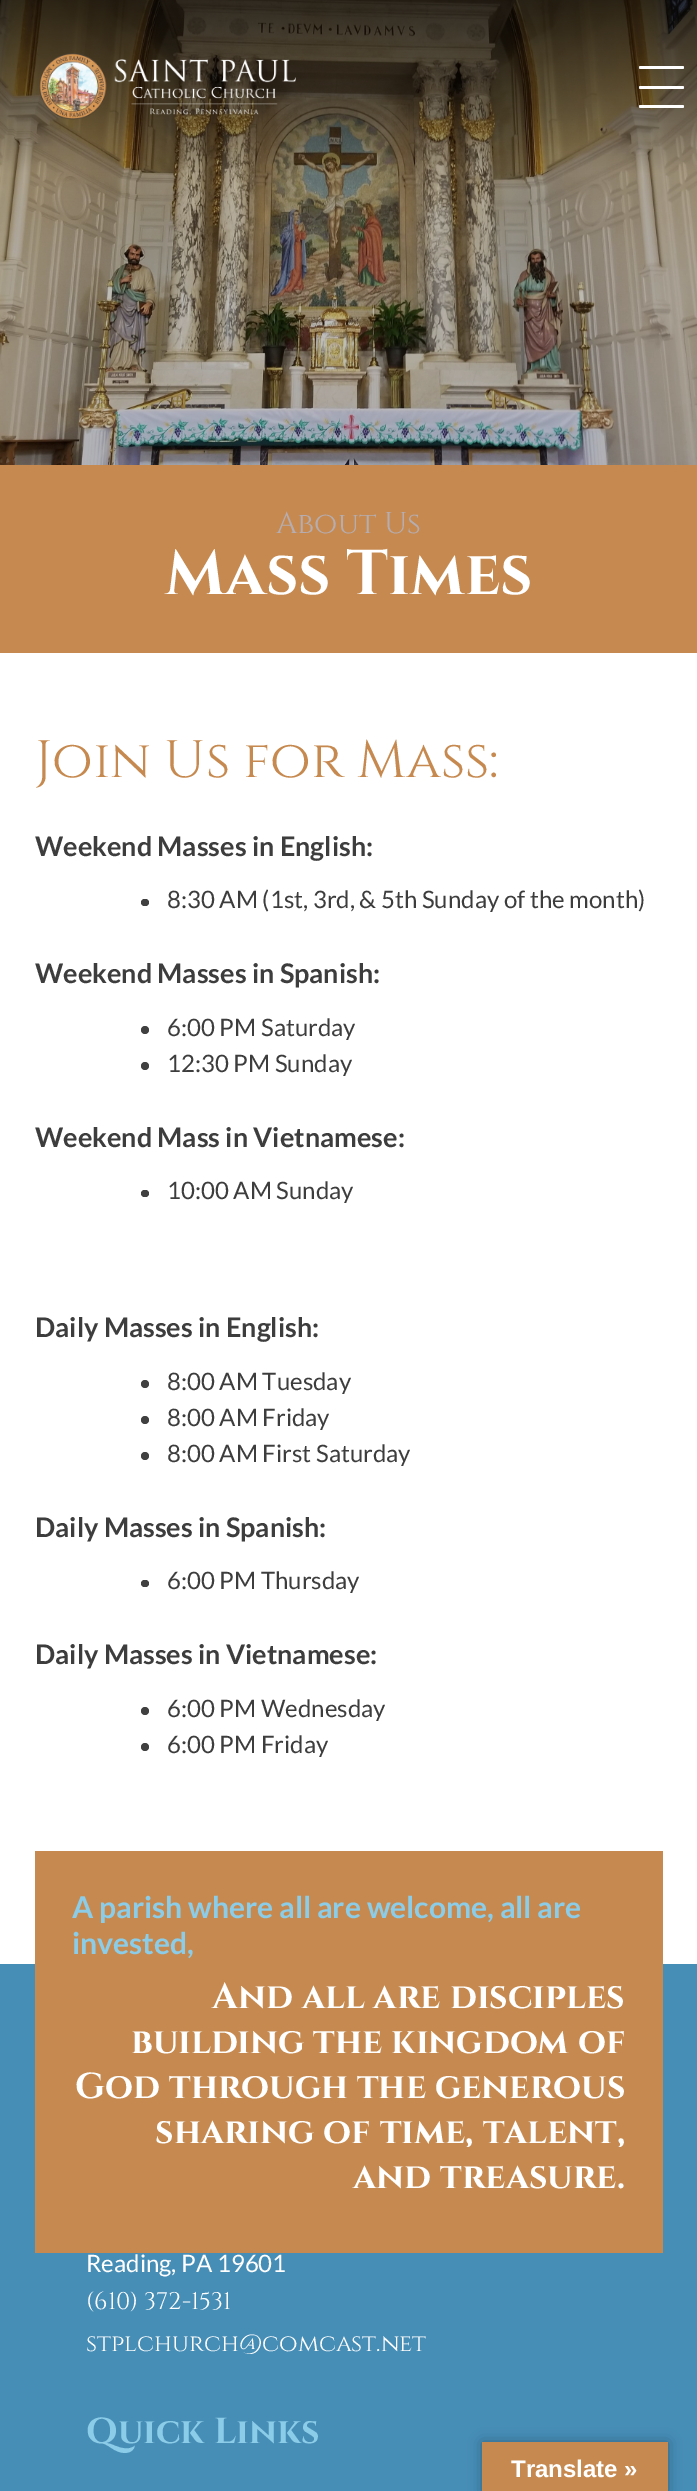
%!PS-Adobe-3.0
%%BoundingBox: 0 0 697 2491
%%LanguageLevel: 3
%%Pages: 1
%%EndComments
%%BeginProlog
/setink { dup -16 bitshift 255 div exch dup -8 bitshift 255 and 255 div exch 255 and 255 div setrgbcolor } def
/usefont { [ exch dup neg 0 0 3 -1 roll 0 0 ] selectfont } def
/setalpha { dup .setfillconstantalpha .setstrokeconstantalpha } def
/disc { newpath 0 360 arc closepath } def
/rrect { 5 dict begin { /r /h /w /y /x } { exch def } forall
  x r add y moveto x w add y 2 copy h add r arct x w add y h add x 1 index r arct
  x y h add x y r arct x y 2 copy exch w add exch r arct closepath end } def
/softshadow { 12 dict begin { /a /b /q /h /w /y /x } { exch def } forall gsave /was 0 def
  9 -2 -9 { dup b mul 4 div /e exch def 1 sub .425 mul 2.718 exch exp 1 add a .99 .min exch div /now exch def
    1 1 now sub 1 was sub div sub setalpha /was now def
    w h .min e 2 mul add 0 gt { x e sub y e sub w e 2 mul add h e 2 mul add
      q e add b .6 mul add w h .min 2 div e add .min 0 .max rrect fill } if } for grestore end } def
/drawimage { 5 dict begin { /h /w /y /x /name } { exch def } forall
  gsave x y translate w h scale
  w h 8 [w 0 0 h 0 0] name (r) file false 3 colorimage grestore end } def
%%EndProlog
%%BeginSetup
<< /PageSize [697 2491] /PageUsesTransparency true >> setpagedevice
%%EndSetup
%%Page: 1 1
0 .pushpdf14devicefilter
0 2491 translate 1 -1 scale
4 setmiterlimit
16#FFFFFF setink
0 0 697 2491 rectfill
(img2.raw) 0 0 697 465 drawimage
(img1.raw) 39 53 257 67 drawimage
639 66 45 3 1.5 rrect fill
639 86 45 3 1.5 rrect fill
639 105 45 3 1.5 rrect fill
16#C6894F setink
0 465 697 188 rectfill
/Cinzel-Regular 30 usefont
16#B5ADB1 setink
276 533 moveto (About Us) show
/Cinzel-Bold 63 usefont
16#FFFFFF setink
165 594 moveto (Mass Times) show
/Cinzel-Regular 52.5 usefont
16#C6894F setink
35 777 moveto (Join Us for Mass:) show
/Lato-Bold 27 usefont
16#3D3D3D setink
35 856 moveto (Weekend Masses in English:) show
16#404040 setink
141 899 8 7 3.5 rrect fill
/Lato-Regular 24 usefont
16#3D3D3D setink
167 908 moveto (8:30 AM \(1st, 3rd, & 5th Sunday of the month\)) show
/Lato-Bold 27 usefont
35 983 moveto (Weekend Masses in Spanish:) show
16#404040 setink
145 1030 4 disc fill
/Lato-Regular 24 usefont
16#3D3D3D setink
167 1036 moveto (6:00 PM Saturday) show
16#404040 setink
145 1066 4 disc fill
16#3D3D3D setink
167 1072 moveto (12:30 PM Sunday) show
/Lato-Bold 27 usefont
35 1147 moveto (Weekend Mass in Vietnamese:) show
16#404040 setink
141 1190 8 7 3.5 rrect fill
/Lato-Regular 24 usefont
16#3D3D3D setink
167 1199 moveto (10:00 AM Sunday) show
/Lato-Bold 27 usefont
35 1337 moveto (Daily Masses in English:) show
16#404040 setink
145 1384 4 disc fill
/Lato-Regular 24 usefont
16#3D3D3D setink
167 1390 moveto (8:00 AM Tuesday) show
16#404040 setink
145 1420 4 disc fill
16#3D3D3D setink
167 1426 moveto (8:00 AM Friday) show
16#404040 setink
145 1456 4 disc fill
16#3D3D3D setink
167 1462 moveto (8:00 AM First Saturday) show
/Lato-Bold 27 usefont
35 1537 moveto (Daily Masses in Spanish:) show
16#404040 setink
141 1580 8 7 3.5 rrect fill
/Lato-Regular 24 usefont
16#3D3D3D setink
167 1589 moveto (6:00 PM Thursday) show
/Lato-Bold 27 usefont
35 1664 moveto (Daily Masses in Vietnamese:) show
16#404040 setink
145 1711 4 disc fill
/Lato-Regular 24 usefont
16#3D3D3D setink
167 1717 moveto (6:00 PM Wednesday) show
16#404040 setink
145 1747 4 disc fill
16#3D3D3D setink
167 1753 moveto (6:00 PM Friday) show
16#478EB7 setink
0 1964 697 527 rectfill
16#C6894F setink
35 1851 628 402 rectfill
/Lato-Bold 30 usefont
16#8BCDE8 setink
72 1918 moveto (A parish where all are welcome, all are) show
72 1954 moveto (invested,) show
/Cinzel-Bold 36 usefont
16#FFFFFF setink
[
    [(And all are disciples) 212 2008]
    [(building the kingdom of) 131 2053]
    [(God through the generous) 75 2098]
    [(sharing of time, talent,) 155 2143]
    [(and treasure.) 353 2188]
] { aload pop moveto show } forall
/Lato-Regular 24 usefont
86 2272 moveto (Reading, PA 19601) show
/Cinzel-Regular 24 usefont
86 2309 moveto (\(610\) 372-1531) show
86 2351 moveto (stplchurch@comcast.net) show
/Cinzel-Bold 36 usefont
16#8BCDE8 setink
86 2443 moveto (Quick Links) show
16#000000 setink
482 2442 186 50 0 7 0.3 softshadow
16#C6894F setink
482 2442 186 49 rectfill
/LiberationSans-Bold 24 usefont
16#FFFFFF setink
511 2477 moveto (Translate ») show
.poppdf14devicefilter showpage
%%EOF
